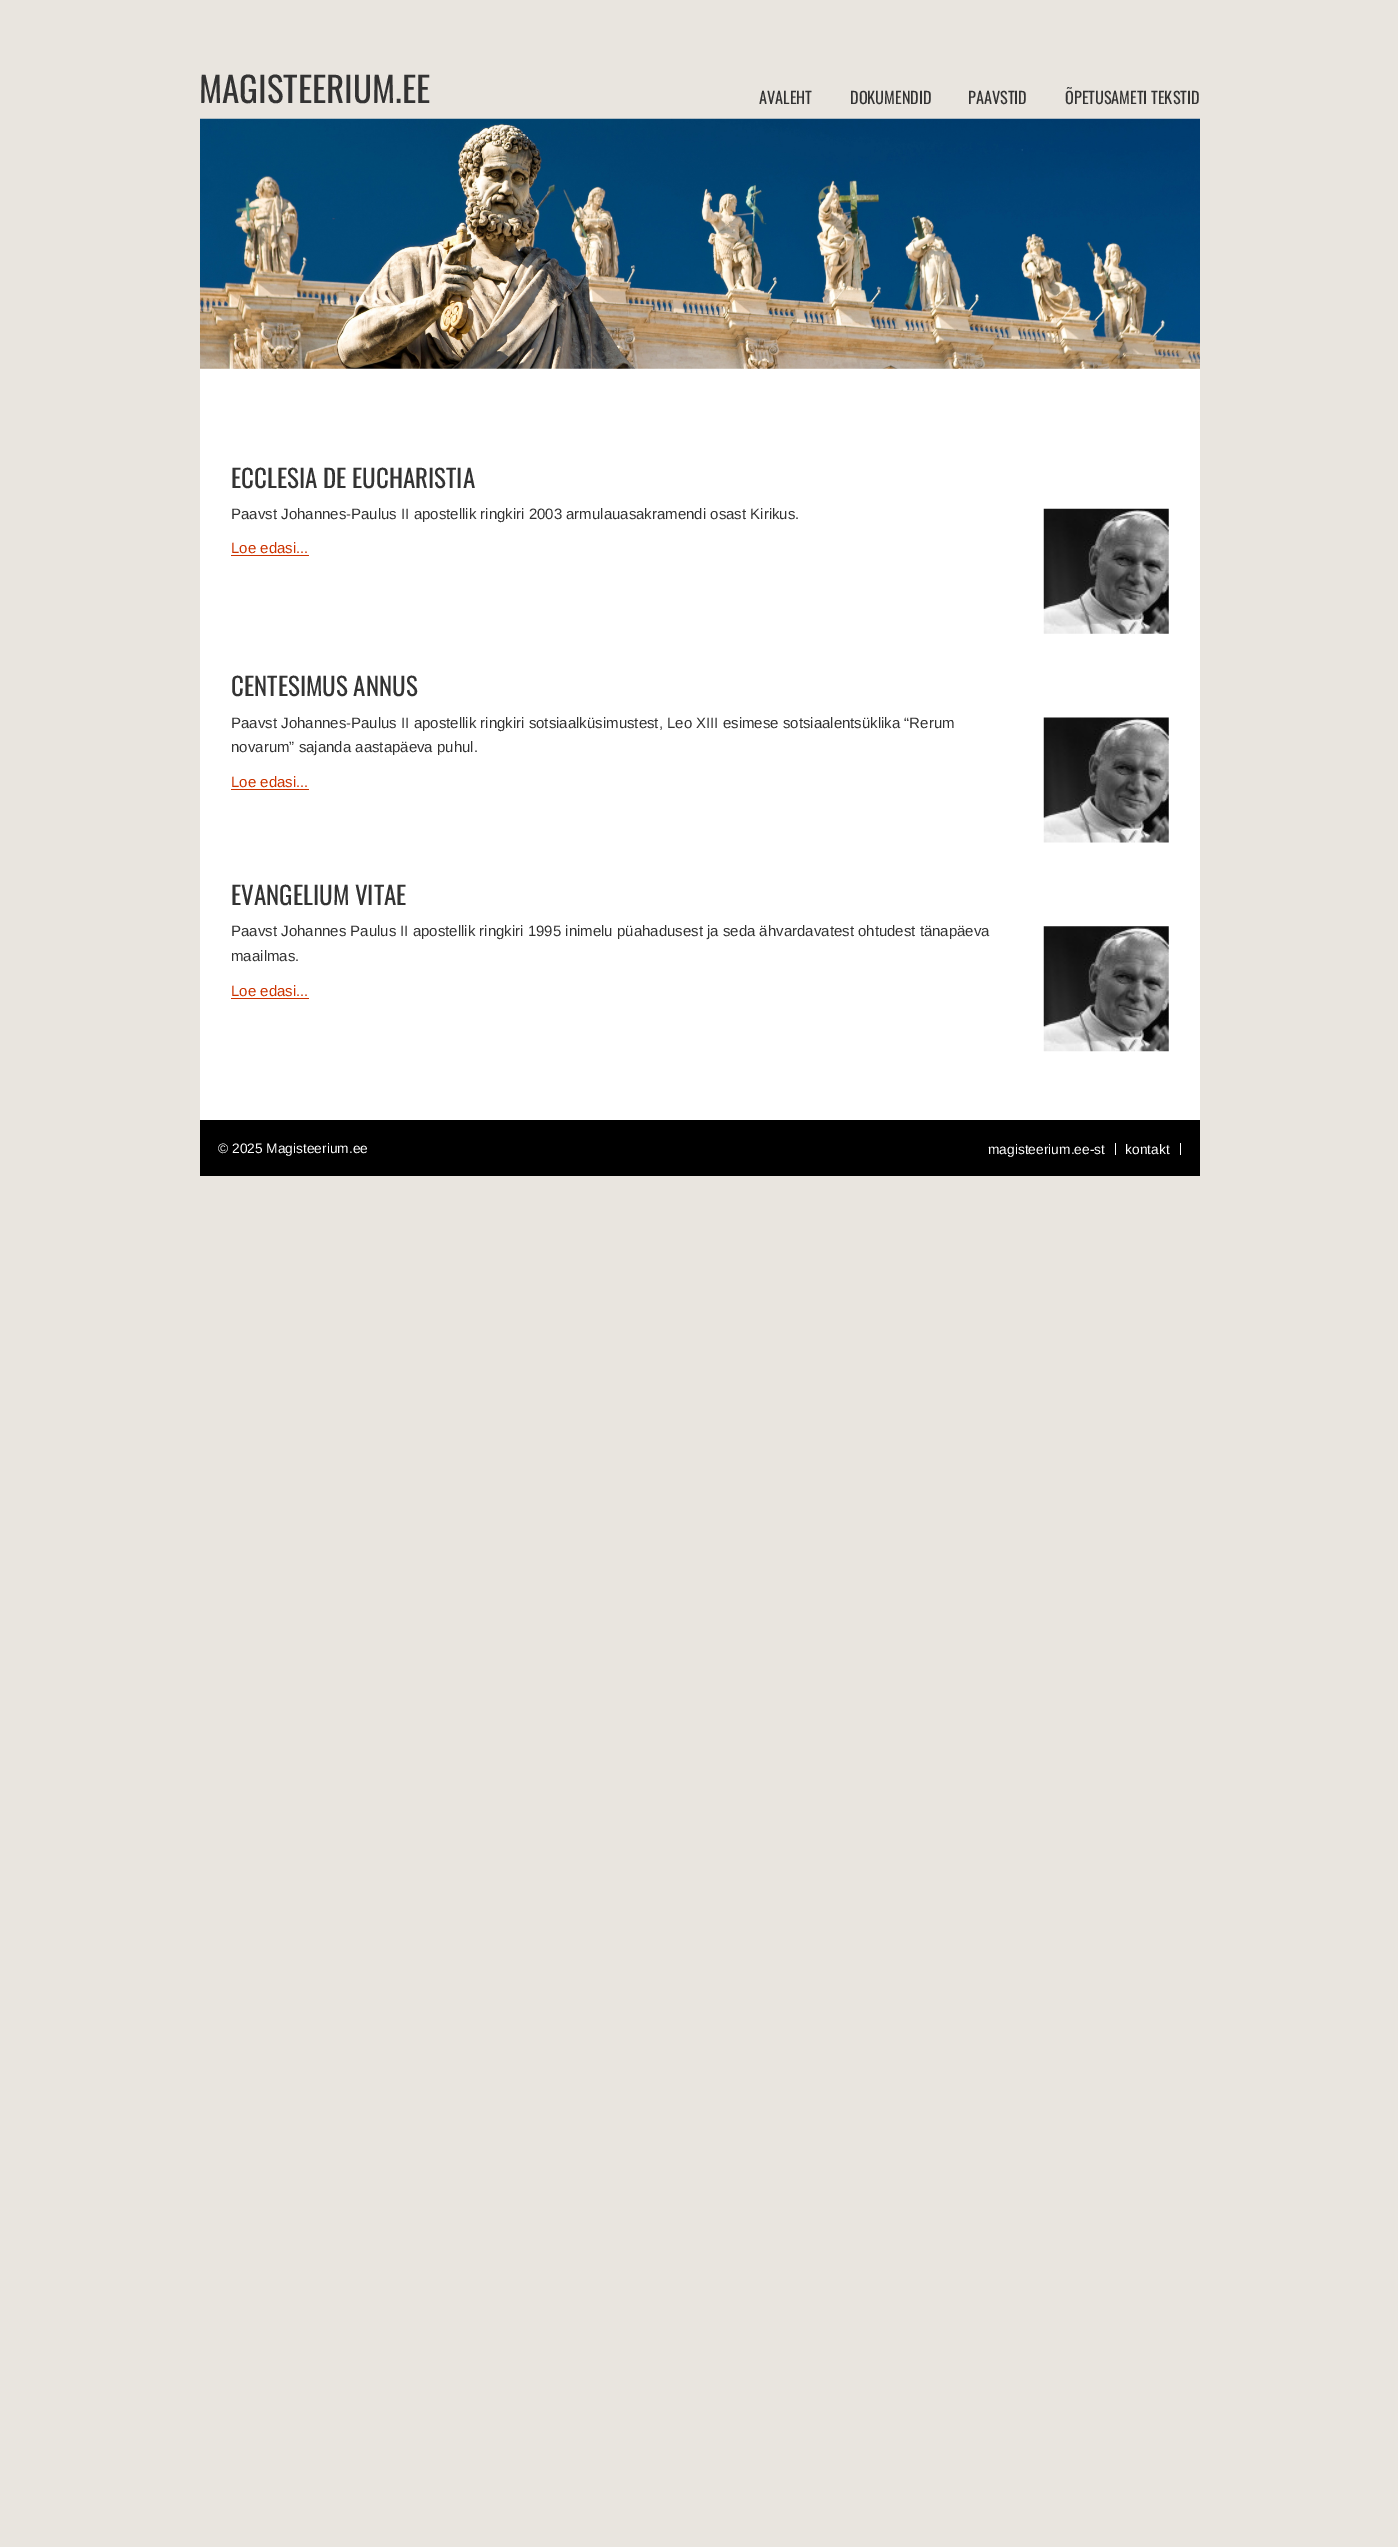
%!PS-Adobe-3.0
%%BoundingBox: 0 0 1398 2547
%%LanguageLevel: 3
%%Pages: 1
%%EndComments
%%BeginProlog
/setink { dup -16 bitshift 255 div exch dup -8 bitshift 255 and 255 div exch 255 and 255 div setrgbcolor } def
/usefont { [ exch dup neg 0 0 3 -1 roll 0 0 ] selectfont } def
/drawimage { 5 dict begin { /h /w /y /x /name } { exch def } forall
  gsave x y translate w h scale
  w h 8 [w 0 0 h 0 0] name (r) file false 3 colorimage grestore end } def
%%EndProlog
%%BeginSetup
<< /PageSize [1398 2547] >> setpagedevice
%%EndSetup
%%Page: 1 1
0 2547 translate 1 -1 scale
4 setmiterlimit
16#E9E5DF setink
0 0 1398 2547 rectfill
/Oswald-Regular 35 usefont
16#333333 setink
199 103 moveto (MAGISTEERIUM.EE) show
/Oswald-Regular 16.25 usefont
[
    [(AVALEHT) 759 104]
    [(DOKUMENDID) 850 104]
    [(PAAVSTID) 968 104]
    [(ÕPETUSAMETI TEKSTID) 1065 104]
] { aload pop moveto show } forall
16#FFFFFF setink
200 368 1000 752 rectfill
(img1.raw) 200 118 1000 251 drawimage
/Oswald-Regular 25 usefont
16#333333 setink
231 488 moveto (ECCLESIA DE EUCHARISTIA) show
/LiberationSans-Regular 15 usefont
231 519 moveto (Paavst Johannes-Paulus II apostellik ringkiri 2003 armulauasakramendi osast Kirikus.) show
(img2.raw) 1043 508 126 126 drawimage
16#CC3300 setink
231 553 moveto (Loe edasi...) show
231 555 78 1 rectfill
/Oswald-Regular 25 usefont
16#333333 setink
231 696 moveto (CENTESIMUS ANNUS) show
/LiberationSans-Regular 15 usefont
231 728 moveto (Paavst Johannes-Paulus II apostellik ringkiri sotsiaalküsimustest, Leo XIII esimese sotsiaalentsüklika “Rerum) show
231 752 moveto (novarum” sajanda aastapäeva puhul.) show
(img3.raw) 1043 717 126 126 drawimage
16#CC3300 setink
231 787 moveto (Loe edasi...) show
231 789 78 1 rectfill
/Oswald-Regular 25 usefont
16#333333 setink
231 905 moveto (EVANGELIUM VITAE) show
/LiberationSans-Regular 15 usefont
231 936 moveto (Paavst Johannes Paulus II apostellik ringkiri 1995 inimelu püahadusest ja seda ähvardavatest ohtudest tänapäeva) show
231 961 moveto (maailmas.) show
(img4.raw) 1043 926 126 126 drawimage
16#CC3300 setink
231 996 moveto (Loe edasi...) show
231 998 78 1 rectfill
16#000000 setink
200 1120 1000 56 rectfill
/LiberationSans-Regular 13.75 usefont
16#FFFFFF setink
218 1153 moveto (© 2025 Magisteerium.ee) show
1115 1143 1 12 rectfill
988 1154 moveto (magisteerium.ee-st) show
1180 1143 1 12 rectfill
1125 1154 moveto (kontakt) show
showpage
%%EOF
